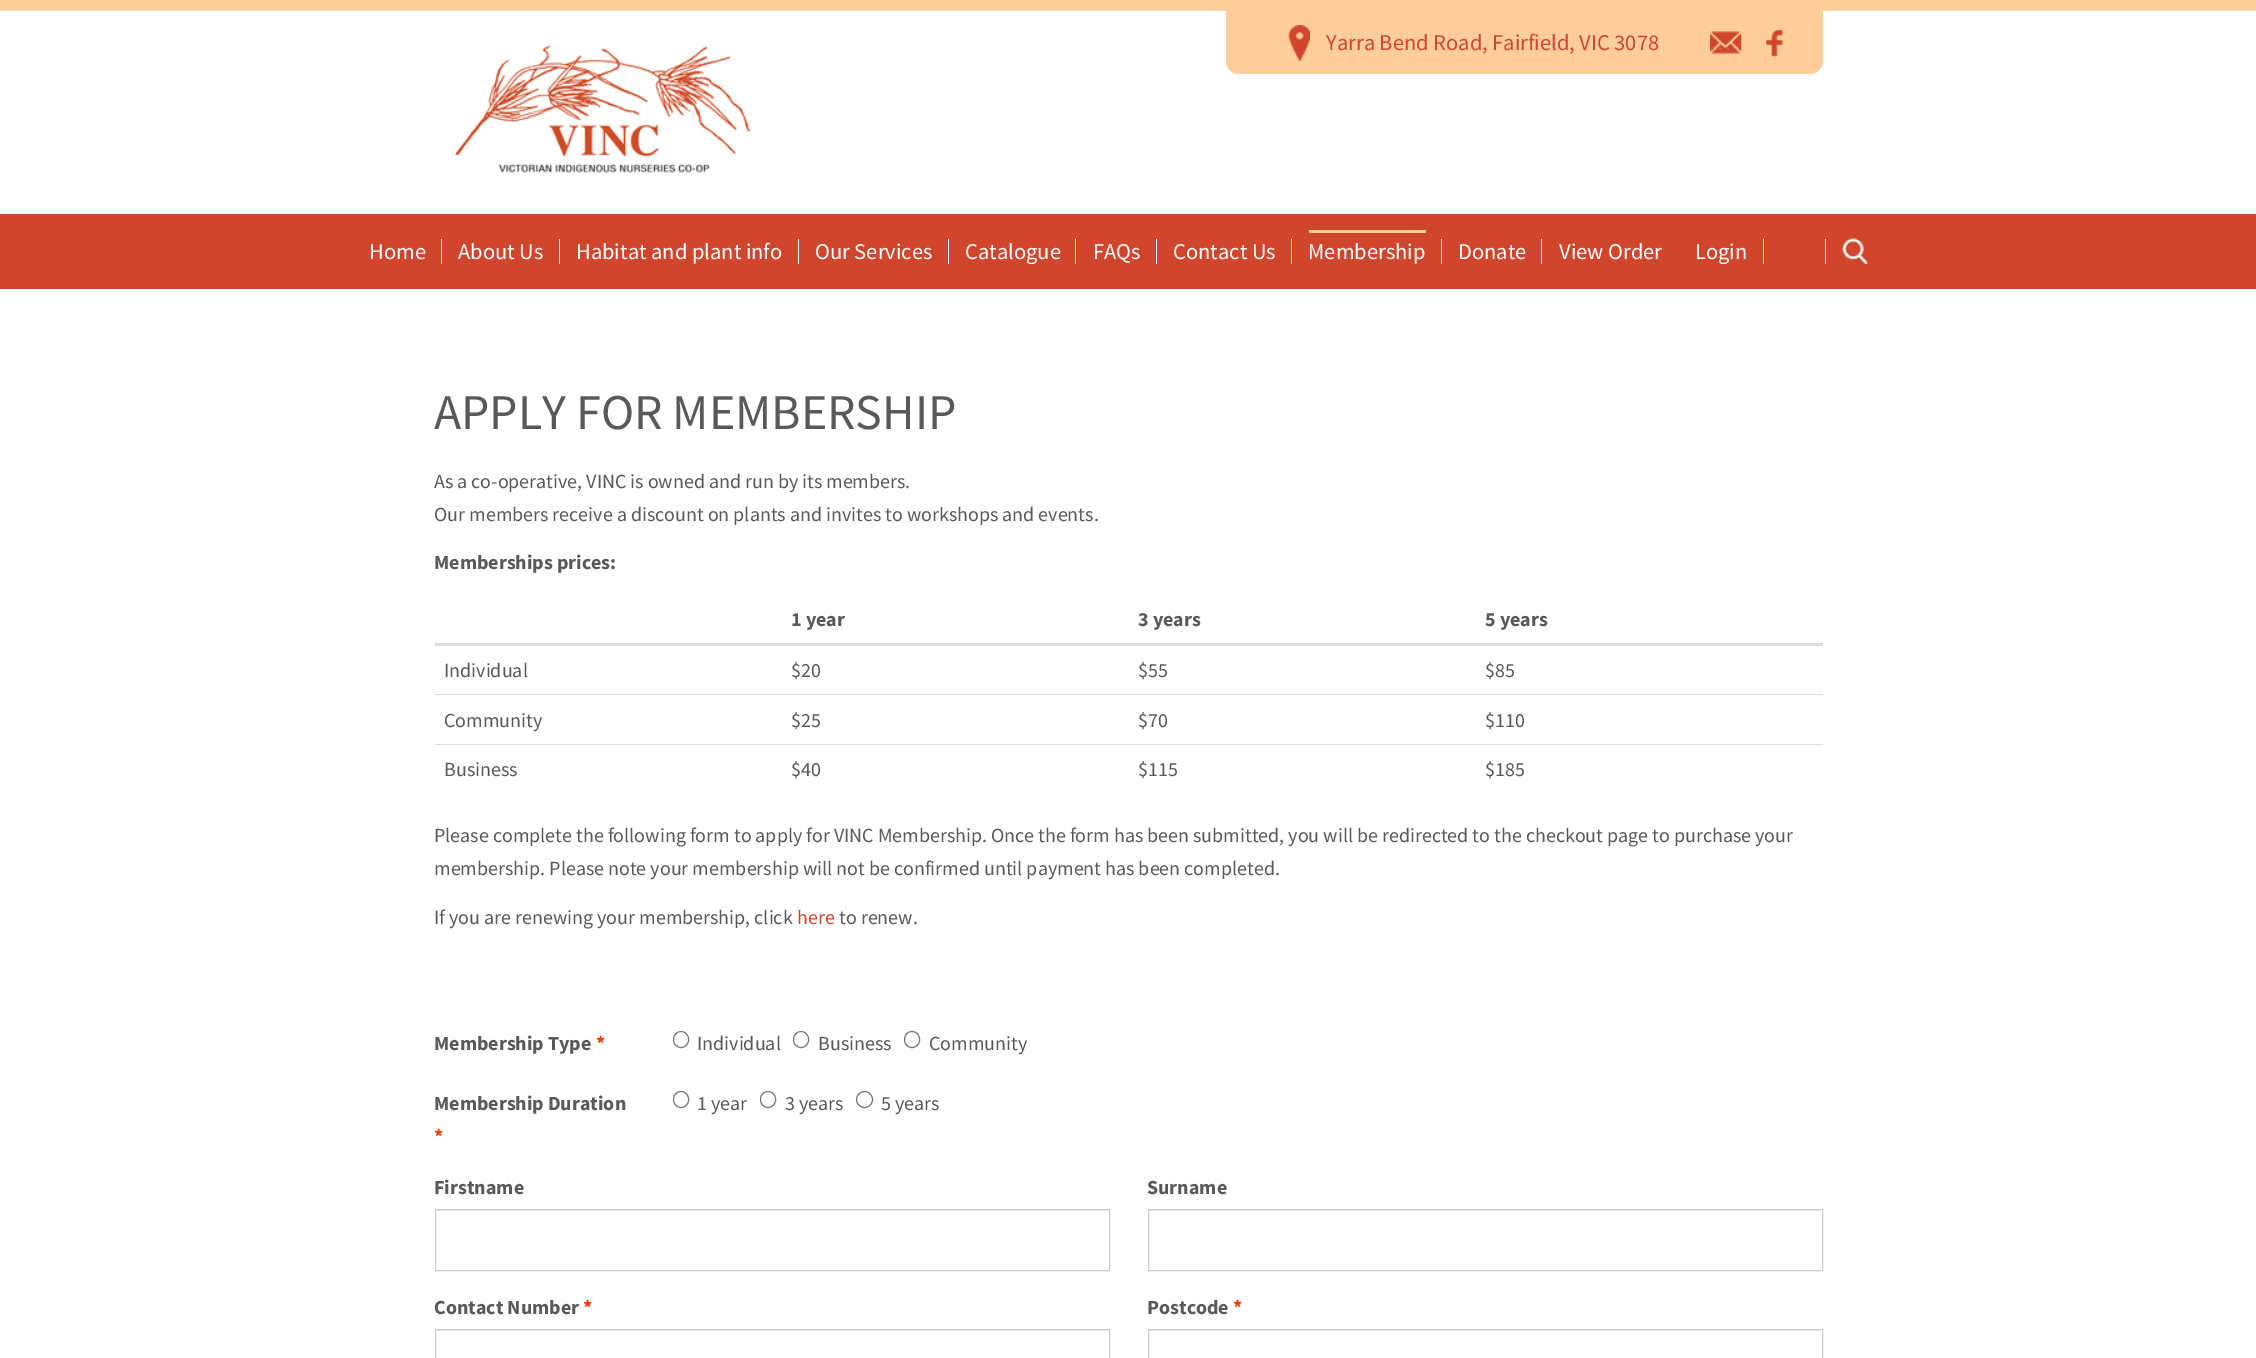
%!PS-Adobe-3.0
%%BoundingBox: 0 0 2256 1358
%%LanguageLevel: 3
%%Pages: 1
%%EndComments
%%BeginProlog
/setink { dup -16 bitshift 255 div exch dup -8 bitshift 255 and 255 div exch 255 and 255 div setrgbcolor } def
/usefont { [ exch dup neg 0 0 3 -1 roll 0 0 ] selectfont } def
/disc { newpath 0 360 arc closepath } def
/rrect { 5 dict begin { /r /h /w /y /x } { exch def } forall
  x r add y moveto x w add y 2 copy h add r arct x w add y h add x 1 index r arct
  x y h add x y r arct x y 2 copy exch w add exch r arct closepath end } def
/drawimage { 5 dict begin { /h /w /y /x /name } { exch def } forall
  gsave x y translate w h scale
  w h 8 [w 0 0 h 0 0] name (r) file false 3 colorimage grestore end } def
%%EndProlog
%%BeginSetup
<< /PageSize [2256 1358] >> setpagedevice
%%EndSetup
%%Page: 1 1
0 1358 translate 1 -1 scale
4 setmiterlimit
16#FFFFFF setink
0 0 2256 1358 rectfill
16#FFCD9A setink
0 0 2256 11 rectfill
(img1.raw) 454 44 297 129 drawimage
1226 11 moveto 1823 11 lineto 1823 61 lineto 1823 68 1817 74 1810 74 curveto 1239 74 lineto 1232 74 1226 68 1226 61 curveto closepath fill
(img2.raw) 1288 25 22 37 drawimage
/SourceSansPro-Regular 22.5 usefont
16#D0452B setink
1326 50 moveto (Yarra Bend Road, Fairfield, VIC 3078) show
(img3.raw) 1710 31 32 23 drawimage
16#D85D3E setink
1709 50 moveto (…) show
(img4.raw) 1766 30 17 27 drawimage
16#D0452B setink
0 214 2256 75 rectfill
16#FFFFFF setink
369 259 moveto (Home) show
441 239 1 25 rectfill
458 259 moveto (About Us) show
559 239 1 25 rectfill
576 259 moveto (Habitat and plant info) show
798 239 1 25 rectfill
815 259 moveto (Our Services) show
948 239 1 25 rectfill
965 259 moveto (Catalogue) show
1075 239 1 25 rectfill
1093 259 moveto (FAQs) show
1156 239 1 25 rectfill
1173 259 moveto (Contact Us) show
1291 239 1 25 rectfill
16#FFCD9A setink
1309 230 117 3 rectfill
16#FFFFFF setink
1308 259 moveto (Membership) show
1441 239 1 25 rectfill
1458 259 moveto (Donate) show
1541 239 1 25 rectfill
1559 259 moveto (View Order) show
1695 259 moveto (Login) show
1763 239 1 25 rectfill
(img5.raw) 1842 238 26 26 drawimage
1825 239 1 25 rectfill
/SourceSansPro-Regular 50 usefont
16#595959 setink
434 429 moveto (APPLY FOR MEMBERSHIP) show
/SourceSansPro-Regular 20 usefont
434 488 moveto (As a co-operative, VINC is owned and run by its members.) show
434 521 moveto (Our members receive a discount on plants and invites to workshops and events.) show
/SourceSansPro-Bold 20 usefont
[
    [(Memberships prices:) 434 569]
    [(1 year) 791 626]
    [(3 years) 1138 626]
] { aload pop moveto show } forall
16#DDDDDD setink
435 643 1388 3 rectfill
16#595959 setink
1485 626 moveto (5 years) show
/SourceSansPro-Regular 20 usefont
[
    [(Individual) 444 677]
    [($20) 791 677]
    [($55) 1138 677]
    [($85) 1485 677]
    [(Community) 444 727]
    [($25) 791 727]
    [($70) 1138 727]
] { aload pop moveto show } forall
16#DDDDDD setink
435 694 1388 1 rectfill
16#595959 setink
[
    [($110) 1485 727]
    [(Business) 444 776]
    [($40) 791 776]
    [($115) 1138 776]
] { aload pop moveto show } forall
16#DDDDDD setink
435 744 1388 1 rectfill
16#595959 setink
[
    [($185) 1485 776]
    [(Please complete the following form to apply for VINC Membership. Once the form has been submitted, you will be redirected to the checkout page to purchase your) 434 842]
    [(membership. Please note your membership will not be confirmed until payment has been completed.) 434 875]
    [(If you are renewing your membership, click) 434 924]
] { aload pop moveto show } forall
16#D0452B setink
797 924 moveto (here) show
16#595959 setink
839 924 moveto (to renew.) show
/SourceSansPro-Bold 20 usefont
434 1050 moveto (Membership Type) show
16#F93706 setink
596 1050 moveto (*) show
16#767676 setink
673.5 1031.5 15 16 7.5 rrect stroke
/SourceSansPro-Regular 20 usefont
16#595959 setink
697 1050 moveto (Individual) show
16#767676 setink
793.5 1031.5 15 16 7.5 rrect stroke
16#595959 setink
818 1050 moveto (Business) show
16#767676 setink
904.5 1031.5 15 16 7.5 rrect stroke
16#595959 setink
929 1050 moveto (Community) show
/SourceSansPro-Bold 20 usefont
434 1110 moveto (Membership Duration) show
16#F93706 setink
434 1143 moveto (*) show
16#767676 setink
673.5 1091.5 15 16 7.5 rrect stroke
/SourceSansPro-Regular 20 usefont
16#595959 setink
697 1110 moveto (1 year) show
16#767676 setink
760.5 1091.5 15 16 7.5 rrect stroke
16#595959 setink
785 1110 moveto (3 years) show
16#767676 setink
864.5 1099.5 8 disc stroke
16#595959 setink
881 1110 moveto (5 years) show
/SourceSansPro-Bold 20 usefont
434 1194 moveto (Firstname) show
16#ECECEC setink
436 1210 673 1 rectfill
16#CCCCCC setink
435.5 1209.5 674 61 rectstroke
16#595959 setink
1147 1194 moveto (Surname) show
16#ECECEC setink
1149 1210 672 1 rectfill
16#CCCCCC setink
1148.5 1209.5 674 61 rectstroke
16#595959 setink
434 1314 moveto (Contact Number) show
16#F93706 setink
583 1314 moveto (*) show
16#ECECEC setink
436 1330 673 1 rectfill
16#CCCCCC setink
435.5 1329.5 674 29 rectstroke
16#595959 setink
1147 1314 moveto (Postcode) show
16#F93706 setink
1233 1314 moveto (*) show
16#ECECEC setink
1149 1330 672 1 rectfill
16#CCCCCC setink
1148.5 1329.5 674 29 rectstroke
showpage
%%EOF
